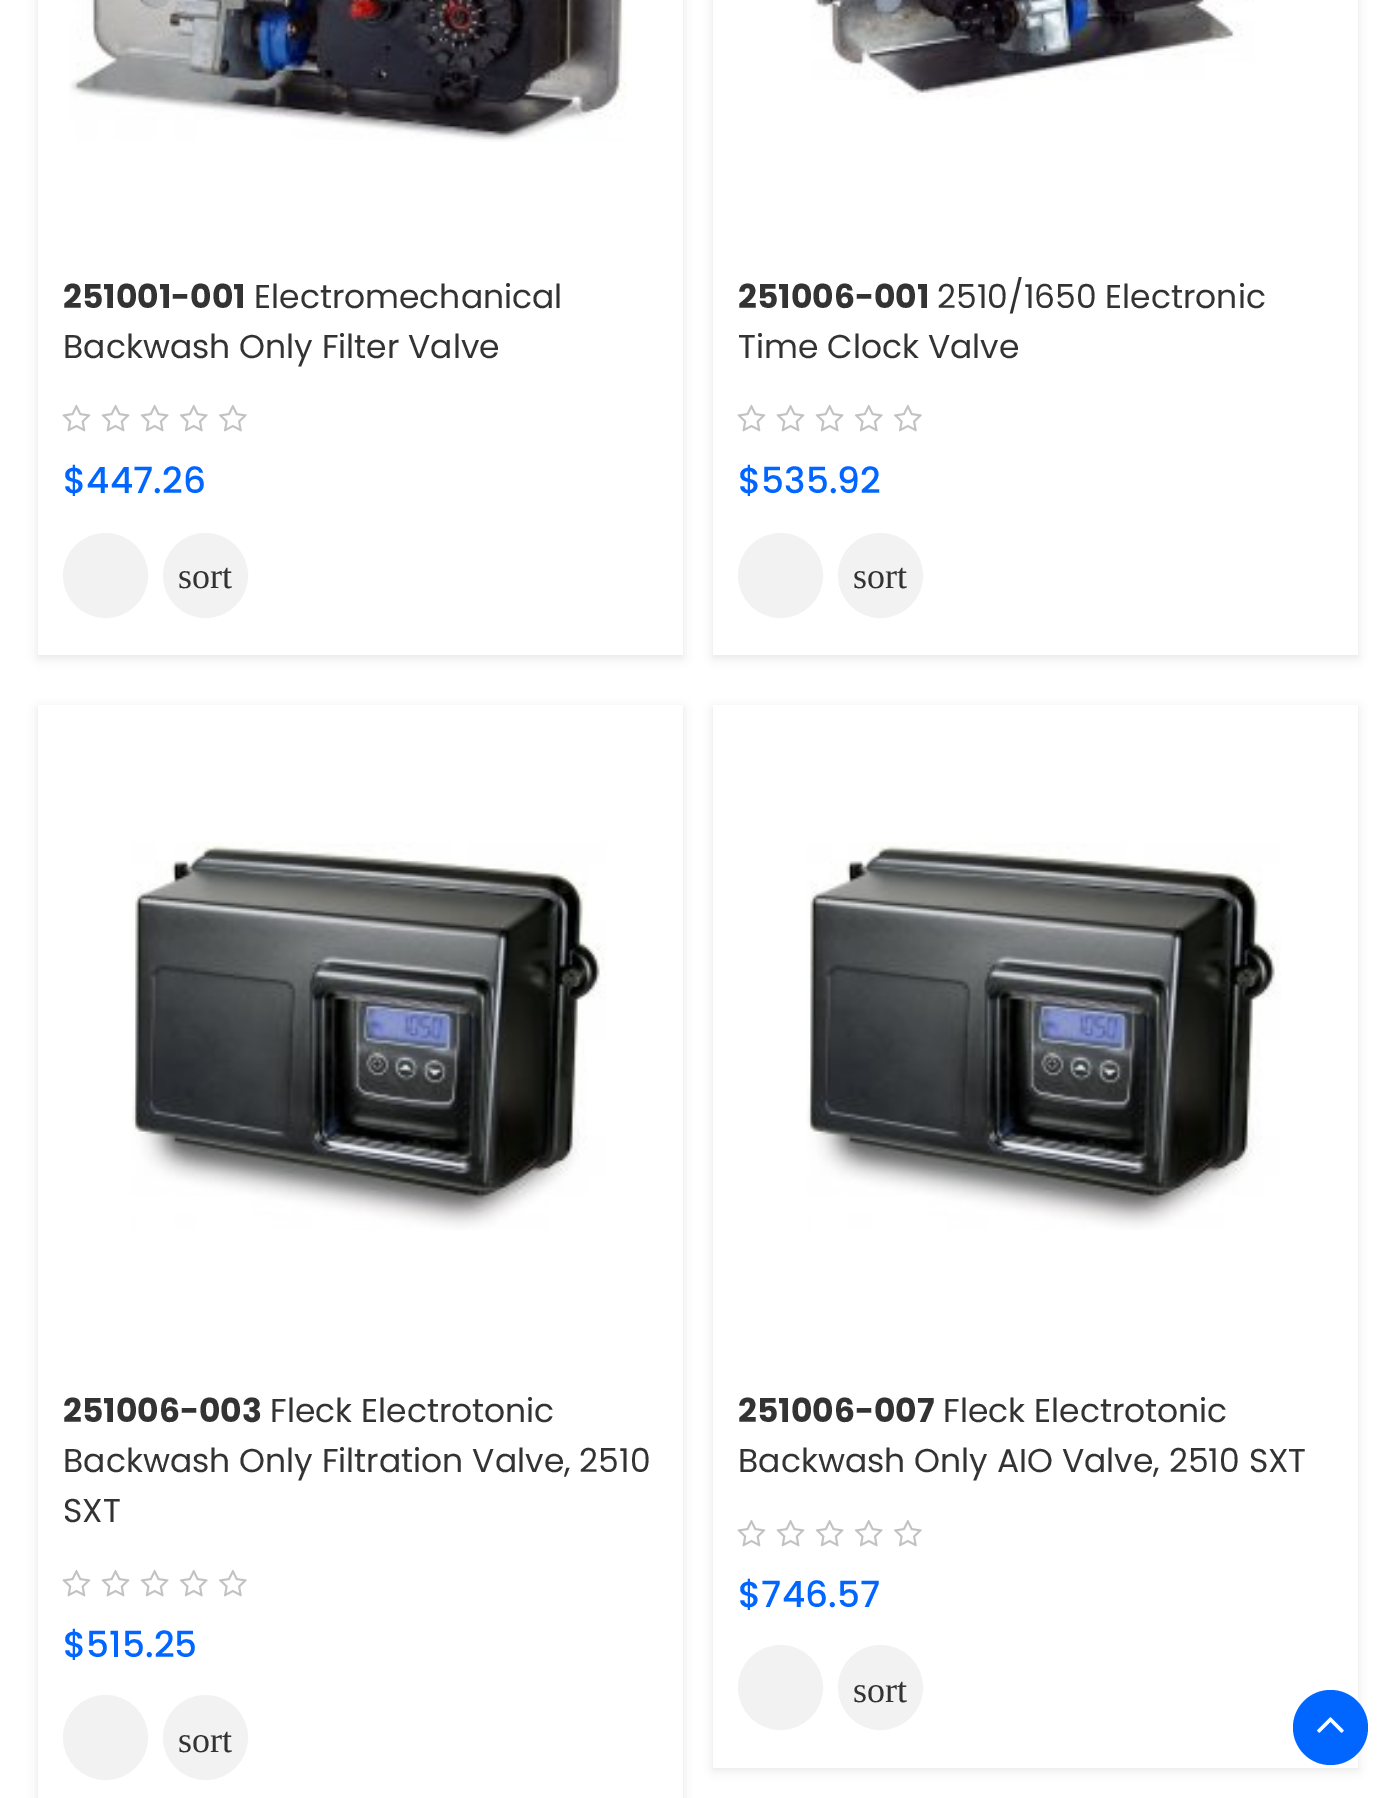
%!PS-Adobe-3.0
%%BoundingBox: 0 0 1395 1798
%%LanguageLevel: 3
%%Pages: 1
%%EndComments
%%BeginProlog
/setink { dup -16 bitshift 255 div exch dup -8 bitshift 255 and 255 div exch 255 and 255 div setrgbcolor } def
/usefont { [ exch dup neg 0 0 3 -1 roll 0 0 ] selectfont } def
/setalpha { dup .setfillconstantalpha .setstrokeconstantalpha } def
/disc { newpath 0 360 arc closepath } def
/rrect { 5 dict begin { /r /h /w /y /x } { exch def } forall
  x r add y moveto x w add y 2 copy h add r arct x w add y h add x 1 index r arct
  x y h add x y r arct x y 2 copy exch w add exch r arct closepath end } def
/softshadow { 12 dict begin { /a /b /q /h /w /y /x } { exch def } forall gsave /was 0 def
  9 -2 -9 { dup b mul 4 div /e exch def 1 sub .425 mul 2.718 exch exp 1 add a .99 .min exch div /now exch def
    1 1 now sub 1 was sub div sub setalpha /was now def
    w h .min e 2 mul add 0 gt { x e sub y e sub w e 2 mul add h e 2 mul add
      q e add b .6 mul add w h .min 2 div e add .min 0 .max rrect fill } if } for grestore end } def
/drawimage { 5 dict begin { /h /w /y /x /name } { exch def } forall
  gsave x y translate w h scale
  w h 8 [w 0 0 h 0 0] name (r) file false 3 colorimage grestore end } def
%%EndProlog
%%BeginSetup
<< /PageSize [1395 1798] /PageUsesTransparency true >> setpagedevice
%%EndSetup
%%Page: 1 1
0 .pushpdf14devicefilter
0 1798 translate 1 -1 scale
4 setmiterlimit
16#FFFFFF setink
0 0 1395 1798 rectfill
gsave
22 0 moveto 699 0 lineto 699 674 lineto 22 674 lineto closepath 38 -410 moveto 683 -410 lineto 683 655 lineto 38 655 lineto closepath eoclip newpath
16#000000 setink
38 -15 645 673 0 5 0.1 softshadow
grestore
(img1.raw) 69 0 558 142 drawimage
/Poppins-Bold 33 usefont
16#333333 setink
63 308 moveto (251001-001) show
/Poppins-Regular 33 usefont
254 308 moveto (Electromechanical) show
63 358 moveto (Backwash Only Filter Valve) show
(img2.raw) 62 404 185 28 drawimage
/Poppins-Medium 36 usefont
16#0066FF setink
63 493 moveto ($447.26) show
16#F2F2F2 setink
105.5 575.5 41 disc gsave fill grestore
3 setlinewidth
stroke
205.5 575.5 41 disc gsave fill grestore
stroke
/LiberationSerif-Regular 36 usefont
16#333333 setink
178 588 moveto (sort) show
gsave
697 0 moveto 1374 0 lineto 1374 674 lineto 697 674 lineto closepath 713 -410 moveto 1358 -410 lineto 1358 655 lineto 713 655 lineto closepath eoclip newpath
16#000000 setink
713 -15 645 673 0 5 0.1 softshadow
grestore
(img3.raw) 811 0 443 99 drawimage
/Poppins-Bold 33 usefont
738 308 moveto (251006-001) show
/Poppins-Regular 33 usefont
937 308 moveto (2510/1650 Electronic) show
738 358 moveto (Time Clock Valve) show
(img2.raw) 737 404 185 28 drawimage
/Poppins-Medium 36 usefont
16#0066FF setink
738 493 moveto ($535.92) show
16#F2F2F2 setink
780.5 575.5 41 disc gsave fill grestore
stroke
880.5 575.5 41 disc gsave fill grestore
stroke
/LiberationSerif-Regular 36 usefont
16#333333 setink
853 588 moveto (sort) show
gsave
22 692 moveto 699 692 lineto 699 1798 lineto 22 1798 lineto closepath 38 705 moveto 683 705 lineto 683 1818 lineto 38 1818 lineto closepath eoclip newpath
16#000000 setink
38 708 645 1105 0 5 0.1 softshadow
grestore
(img4.raw) 131 842 475 388 drawimage
/Poppins-Bold 33 usefont
63 1422 moveto (251006-003) show
/Poppins-Regular 33 usefont
[
    [(Fleck Electrotonic) 270 1422]
    [(Backwash Only Filtration Valve, 2510) 63 1472]
    [(SXT) 63 1522]
] { aload pop moveto show } forall
(img2.raw) 62 1569 185 28 drawimage
/Poppins-Medium 36 usefont
16#0066FF setink
63 1657 moveto ($515.25) show
16#F2F2F2 setink
105.5 1737.5 41 disc gsave fill grestore
stroke
205.5 1737.5 41 disc gsave fill grestore
stroke
/LiberationSerif-Regular 36 usefont
16#333333 setink
178 1752 moveto (sort) show
gsave
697 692 moveto 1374 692 lineto 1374 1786 lineto 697 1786 lineto closepath 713 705 moveto 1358 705 lineto 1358 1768 lineto 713 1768 lineto closepath eoclip newpath
16#000000 setink
713 708 645 1062 0 5 0.1 softshadow
grestore
(img4.raw) 806 842 475 388 drawimage
/Poppins-Bold 33 usefont
738 1422 moveto (251006-007) show
/Poppins-Regular 33 usefont
943 1422 moveto (Fleck Electrotonic) show
738 1472 moveto (Backwash Only AIO Valve, 2510 SXT) show
(img2.raw) 737 1519 185 28 drawimage
/Poppins-Medium 36 usefont
16#0066FF setink
738 1607 moveto ($746.57) show
16#F2F2F2 setink
780.5 1687.5 41 disc gsave fill grestore
stroke
880.5 1687.5 41 disc gsave fill grestore
stroke
/LiberationSerif-Regular 36 usefont
16#333333 setink
853 1702 moveto (sort) show
16#0066FF setink
1330.5 1727.5 37.5 disc fill
(img5.raw) 1317 1717 27 16 drawimage
.poppdf14devicefilter showpage
%%EOF
